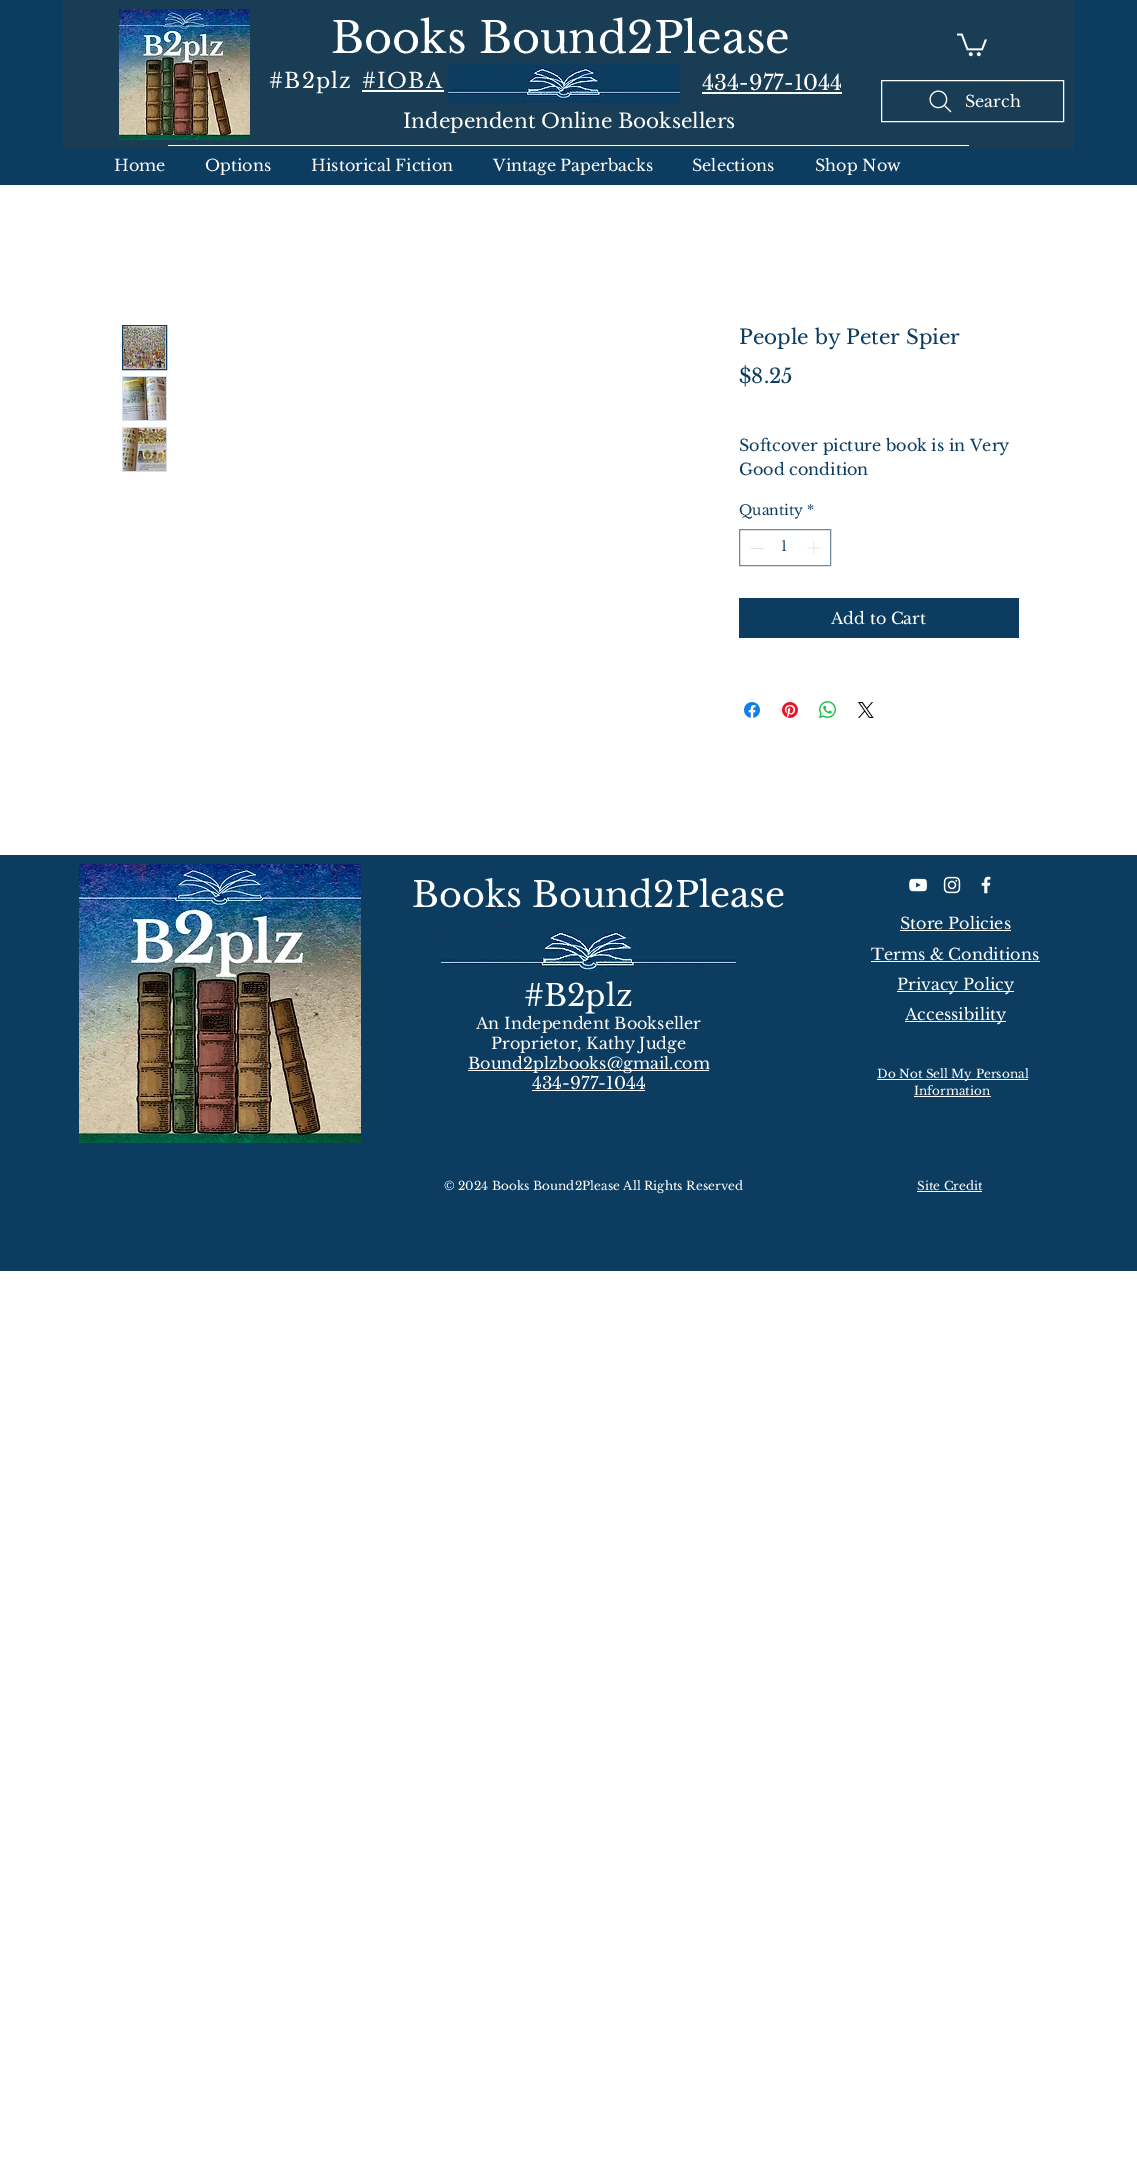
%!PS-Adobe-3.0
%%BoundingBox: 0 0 1137 2163
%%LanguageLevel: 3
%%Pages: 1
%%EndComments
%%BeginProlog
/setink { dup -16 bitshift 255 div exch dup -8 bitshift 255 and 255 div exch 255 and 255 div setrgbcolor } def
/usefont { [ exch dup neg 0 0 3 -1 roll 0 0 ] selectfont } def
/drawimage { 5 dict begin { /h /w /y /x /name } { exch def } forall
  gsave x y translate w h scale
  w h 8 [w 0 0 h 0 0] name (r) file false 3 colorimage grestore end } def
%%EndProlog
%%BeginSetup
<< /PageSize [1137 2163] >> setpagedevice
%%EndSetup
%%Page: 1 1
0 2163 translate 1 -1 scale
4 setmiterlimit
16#FFFFFF setink
0 0 1137 2163 rectfill
16#0C3C60 setink
0 0 1137 185 rectfill
16#183D54 setink
63 0 1011 149 rectfill
(img1.raw) 119 9 131 131 drawimage
/LibreBaskerville-Regular 43 usefont
16#FFFFFF setink
331 53 moveto (Books Bound2Please) show
/LibreBaskerville-Regular 21 usefont
269 88 moveto 1.25 0 (#B2plz) ashow
362 88 moveto 1.25 0 (#IOBA) ashow
362 90 82 2 rectfill
(img2.raw) 448 63 232 40 drawimage
702 90 moveto (434-977-1044) show
702 92 140 2 rectfill
/LibreBaskerville-Regular 20 usefont
403 128 moveto (Independent Online Booksellers) show
(img3.raw) 957 33 30 24 drawimage
881.5 80.5 182 41 rectstroke
(img4.raw) 929 90 23 23 drawimage
/LibreBaskerville-Regular 16 usefont
965 107 moveto (Search) show
168 145 801 1 rectfill
[
    [(Home) 114 171]
    [(Options) 205 171]
    [(Historical Fiction) 311 171]
    [(Vintage Paperbacks) 493 171]
    [(Selections) 692 171]
    [(Shop Now) 815 171]
] { aload pop moveto show } forall
16#0C3C60 setink
122.5 325.5 44 44 rectstroke
(img5.raw) 123 326 43 43 drawimage
16#D1E0EB setink
122 376 45 45 rectfill
(img6.raw) 123 377 43 43 drawimage
122 427 45 45 rectfill
(img7.raw) 123 428 43 43 drawimage
/LibreBaskerville-Regular 20 usefont
16#0C3C60 setink
739 344 moveto (People by Peter Spier) show
739 383 moveto ($8.25) show
/LibreBaskerville-Regular 16 usefont
739 451 moveto (Softcover picture book is in Very) show
739 475 moveto (Good condition) show
/LibreBaskerville-Regular 14 usefont
739 515 moveto (Quantity *) show
16#6D8AA0 setink
739.5 529.5 91 36 rectstroke
16#E3E3E3 setink
751 548 13 1 rectfill
16#0C3C60 setink
781 551 moveto (1) show
(img8.raw) 807 541 14 14 drawimage
739 598 280 40 rectfill
/LibreBaskerville-Regular 16 usefont
16#FFFFFF setink
831 624 moveto (Add to Cart) show
(img9.raw) 744 702 16 16 drawimage
(img10.raw) 782 702 16 16 drawimage
(img11.raw) 819 701 17 17 drawimage
(img12.raw) 858 702 16 16 drawimage
16#0C3C60 setink
0 855 1137 416 rectfill
(img13.raw) 79 864 282 279 drawimage
/LibreBaskerville-Regular 35 usefont
16#FFFFFF setink
412 907 moveto (Books Bound2Please) show
(img14.raw) 909 878 19 14 drawimage
(img15.raw) 943 876 18 18 drawimage
(img16.raw) 981 876 10 18 drawimage
(img17.raw) 441 925 295 48 drawimage
/LibreBaskerville-Regular 16 usefont
900 929 moveto (Store Policies) show
900 930 111 1 rectfill
871 960 moveto (Terms & Conditions) show
871 961 169 1 rectfill
897 991 117 1 rectfill
897 990 moveto (Privacy Policy) show
905 1021 101 1 rectfill
905 1020 moveto (Accessibility) show
/LibreBaskerville-Regular 30 usefont
524 1006 moveto (#B2plz) show
/LibreBaskerville-Regular 16 usefont
476 1029 moveto (An Independent Bookseller) show
491 1049 moveto (Proprietor, Kathy Judge) show
468 1070 241 1 rectfill
468 1069 moveto (Bound2plzbooks@gmail.com) show
/LibreBaskerville-Regular 17 usefont
532 1089 moveto (434-977-1044) show
532 1090 113 1 rectfill
877 1079 151 1 rectfill
/LibreBaskerville-Regular 12 usefont
877 1078 moveto (Do Not Sell My Personal) show
914 1095 moveto (Information) show
914 1096 77 1 rectfill
444 1190 moveto (© 2024 Books Bound2Please All Rights Reserved) show
917 1190 moveto (Site Credit) show
917 1191 65 1 rectfill
showpage
%%EOF
